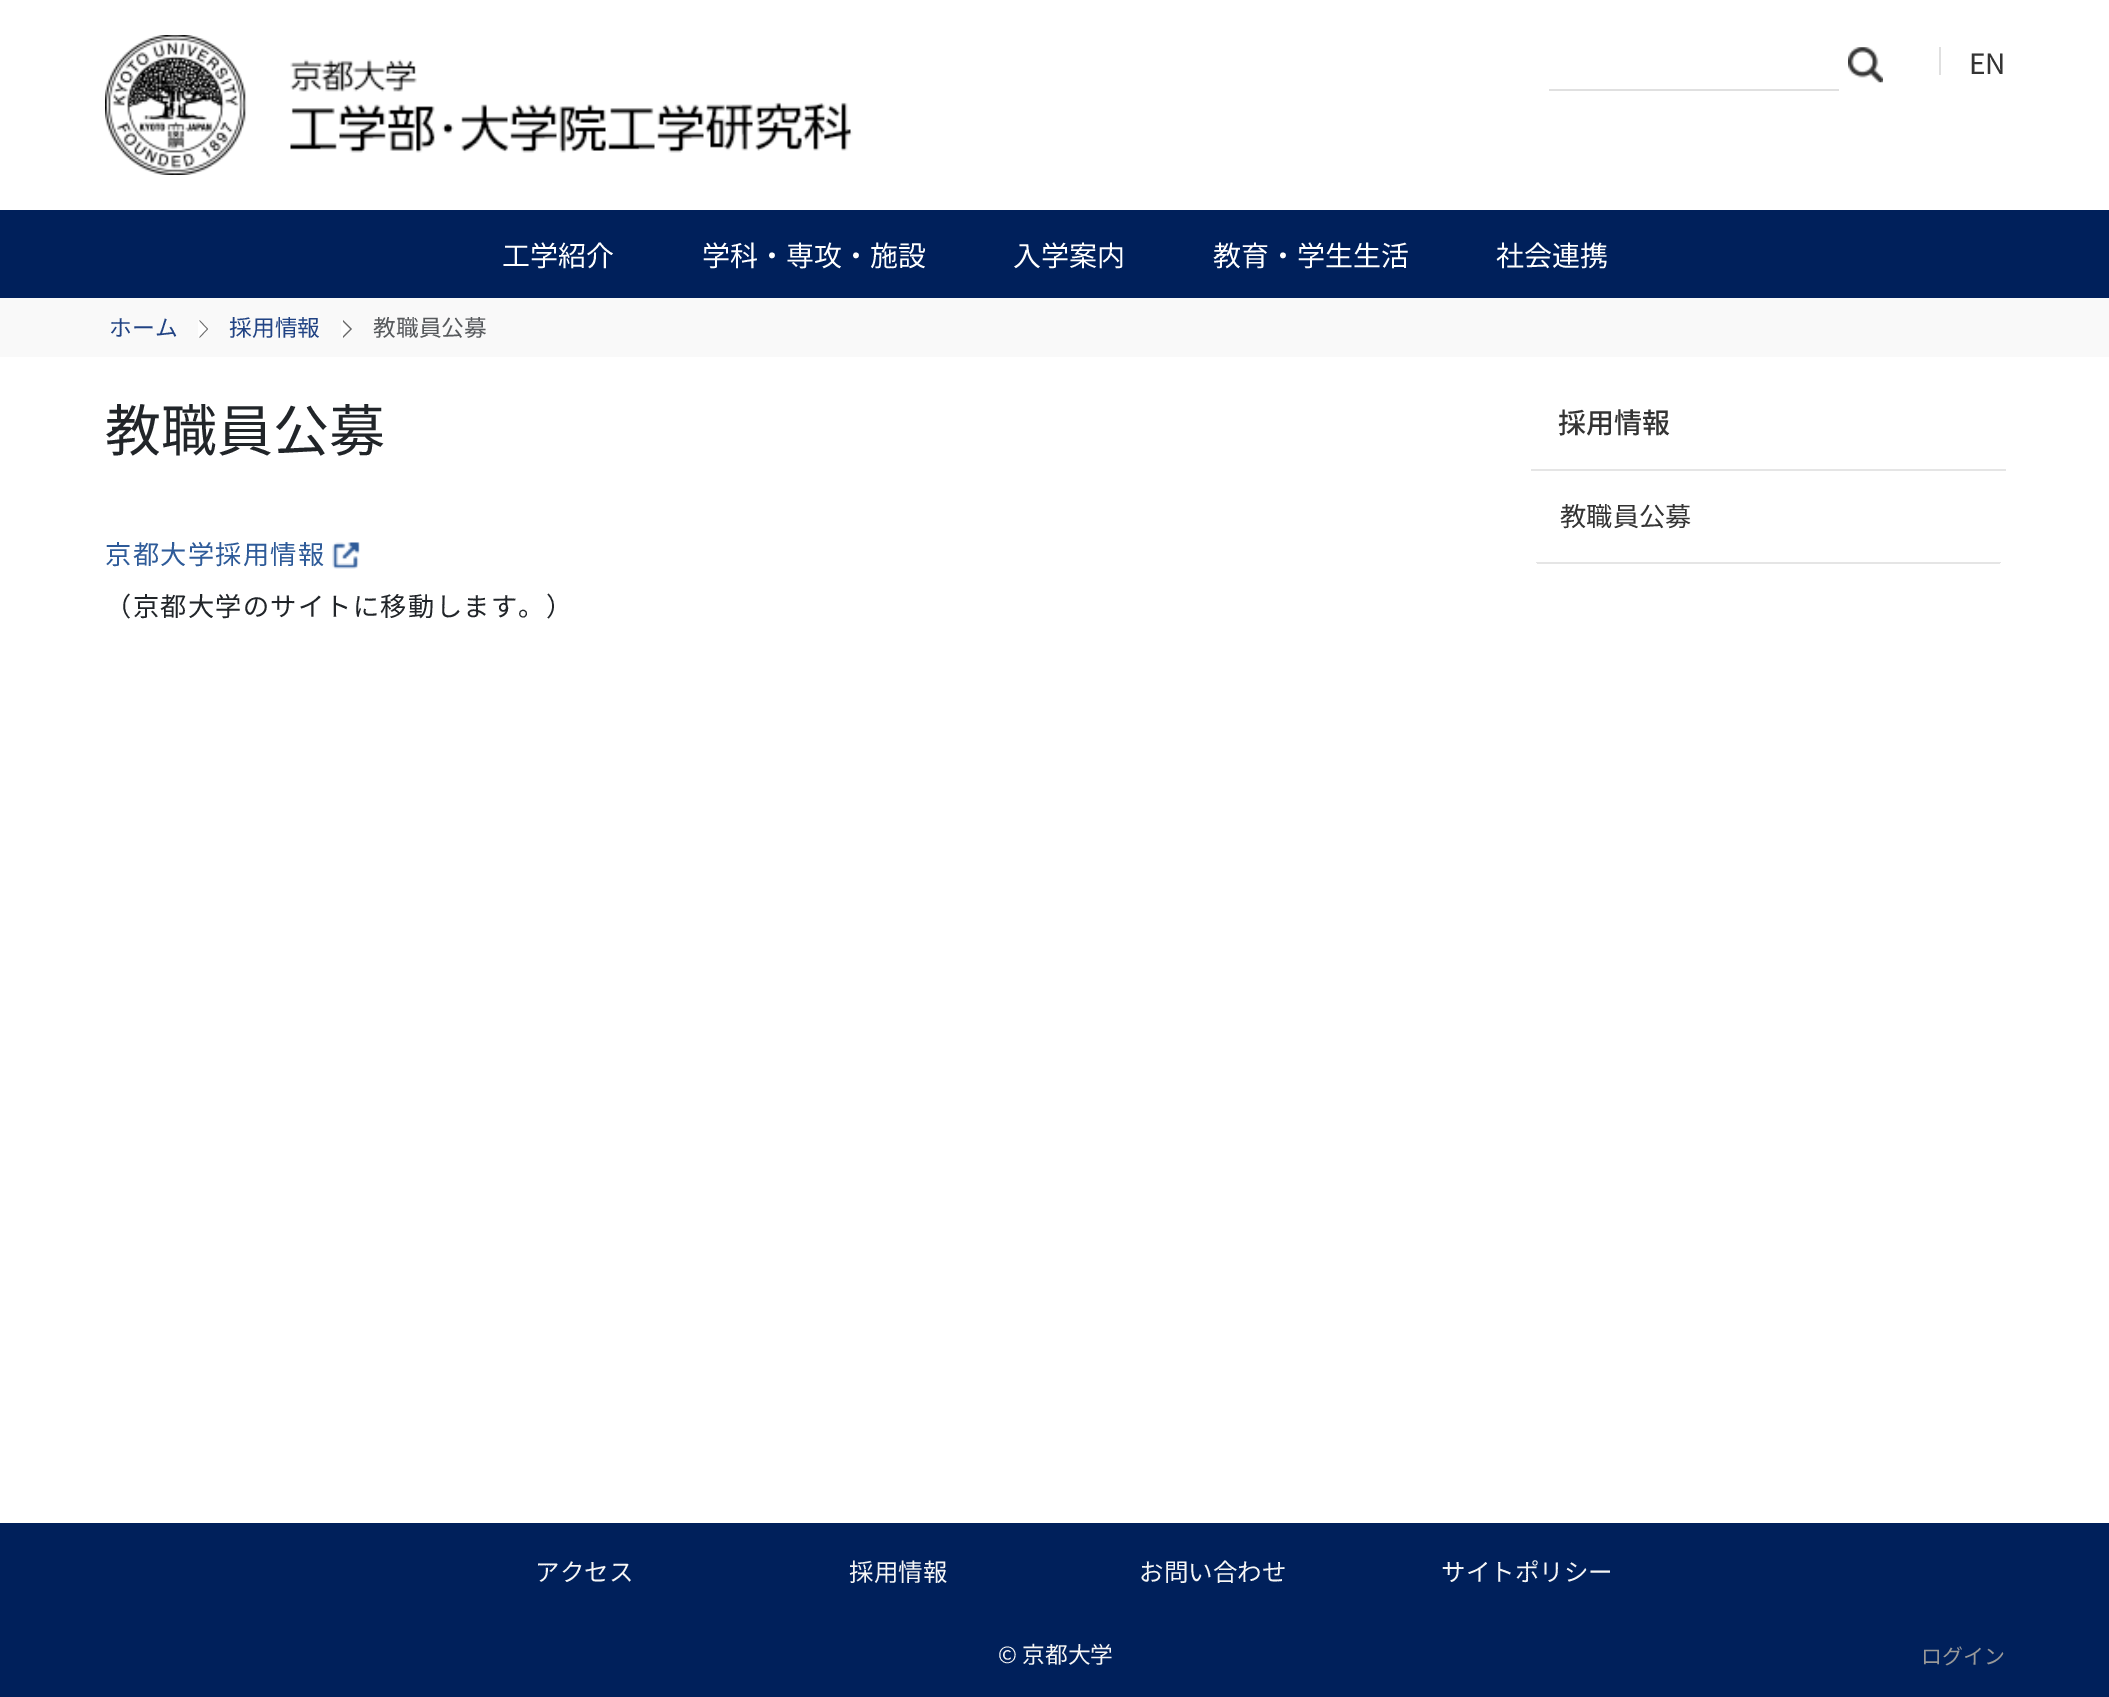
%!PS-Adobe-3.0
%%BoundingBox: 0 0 2109 1697
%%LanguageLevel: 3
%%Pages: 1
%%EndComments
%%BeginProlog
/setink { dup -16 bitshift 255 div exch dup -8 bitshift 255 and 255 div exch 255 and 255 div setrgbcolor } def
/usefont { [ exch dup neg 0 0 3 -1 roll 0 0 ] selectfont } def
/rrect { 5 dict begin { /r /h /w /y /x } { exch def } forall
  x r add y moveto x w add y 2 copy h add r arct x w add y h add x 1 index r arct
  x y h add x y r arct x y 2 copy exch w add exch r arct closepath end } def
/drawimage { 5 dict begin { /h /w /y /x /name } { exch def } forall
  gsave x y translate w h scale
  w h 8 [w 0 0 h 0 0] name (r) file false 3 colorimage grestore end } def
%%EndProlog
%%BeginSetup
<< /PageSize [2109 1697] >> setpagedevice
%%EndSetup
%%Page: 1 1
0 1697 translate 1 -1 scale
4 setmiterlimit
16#FFFFFF setink
0 0 2109 1697 rectfill
(img1.raw) 105 35 748 140 drawimage
16#E0E0E0 setink
1939 47 2 28 rectfill
/NotoSansJP-Regular 28 usefont
16#343434 setink
1969 74 moveto (EN) show
16#00205B setink
0 210 2109 88 rectfill
(img2.raw) 1848 47 35 36 drawimage
16#E0E0E0 setink
1549 89 290 2 rectfill
16#FFFFFF setink
[
    [(工学紹介) 502 266]
    [(学科・専攻・施設) 702 266]
    [(入学案内) 1013 266]
    [(教育・学生生活) 1213 266]
    [(社会連携) 1496 266]
] { aload pop moveto show } forall
16#F9F9F9 setink
0 298 2109 59 rectfill
/NotoSansJP-Regular 22.75 usefont
16#214384 setink
109 336 moveto (ホーム) show
16#696969 setink
199.5 338 moveto 199.5 320 lineto 208 329 lineto closepath fill
16#FFFFFF setink
198 338 moveto 198 320 lineto 206.5 329 lineto closepath fill
16#214384 setink
229 336 moveto (採用情報) show
16#696969 setink
343 338 moveto 343 320 lineto 352 329 lineto closepath fill
16#FFFFFF setink
341 338 moveto 341 320 lineto 350 329 lineto closepath fill
16#575A5D setink
373 336 moveto (教職員公募) show
/NotoSansJP-Regular 56 usefont
16#212529 setink
105 451 moveto (教職員公募) show
/NotoSansJP-Regular 26.25 usefont
16#2E5B99 setink
105 564 moveto 1.3 0 (京都大学採用情報) ashow
(img3.raw) 332 542 28 27 drawimage
16#212529 setink
105 616 moveto 1.3 0 (（京都大学のサイトに移動します。）) ashow
16#E5E5E5 setink
1531 469 475 2 rectfill
/NotoSansJP-Medium 28 usefont
16#343434 setink
1558 433 moveto (採用情報) show
gsave
1531 375 475 189 11 rrect clip newpath
16#E5E5E5 setink
1531 562 475 2 rectfill
grestore
/NotoSansJP-Regular 26.25 usefont
1560 526 moveto (教職員公募) show
16#00205B setink
0 1523 2109 174 rectfill
/NotoSansJP-Regular 24.5 usefont
16#F6F6F6 setink
[
    [(アクセス) 535 1581]
    [(採用情報) 849 1581]
    [(お問い合わせ) 1139 1581]
    [(サイトポリシー) 1441 1581]
] { aload pop moveto show } forall
/NotoSansJP-Regular 22.75 usefont
998 1663 moveto (© 京都大学) show
/NotoSansJP-Regular 21 usefont
16#999999 setink
1921 1664 moveto (ログイン) show
showpage
%%EOF
